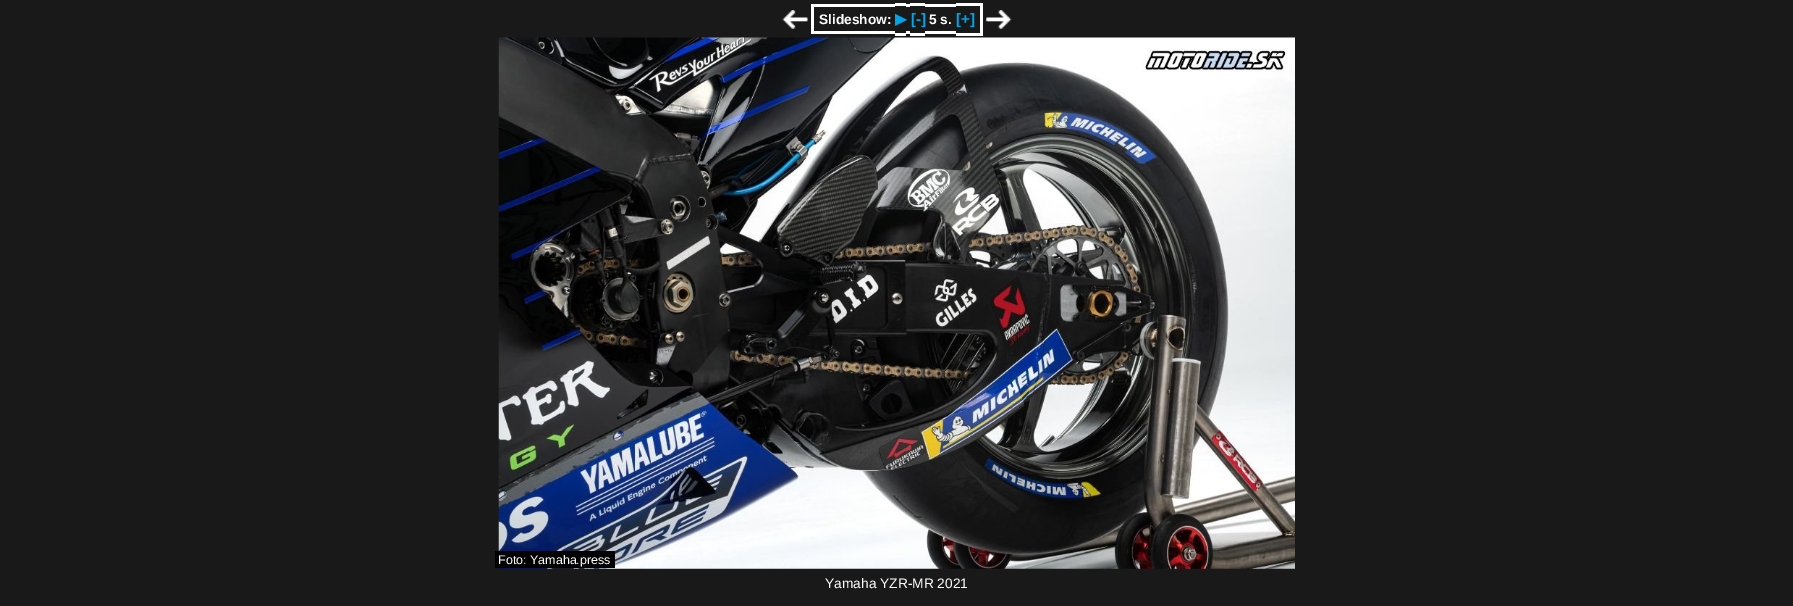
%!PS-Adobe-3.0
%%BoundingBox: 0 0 1793 606
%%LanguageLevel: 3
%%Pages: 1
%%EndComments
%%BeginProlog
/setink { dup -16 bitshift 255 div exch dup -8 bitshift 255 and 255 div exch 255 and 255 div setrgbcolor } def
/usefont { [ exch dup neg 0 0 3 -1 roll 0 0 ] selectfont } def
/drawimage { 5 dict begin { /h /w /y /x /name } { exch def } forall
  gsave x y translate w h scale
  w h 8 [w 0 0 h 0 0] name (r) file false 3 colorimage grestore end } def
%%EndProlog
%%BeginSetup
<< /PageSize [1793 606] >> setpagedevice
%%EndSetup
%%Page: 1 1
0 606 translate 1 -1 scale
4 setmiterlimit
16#191919 setink
0 0 1793 606 rectfill
(img1.raw) 782 10 26 19 drawimage
/LiberationSans-Bold 13.75 usefont
16#FFFFFF setink
819 24 moveto (Slideshow:) show
[
    [811 4 84 3 16#FFFFFF]
    [811 31 84 3 16#FFFFFF]
    [811 4 3 30 16#FFFFFF]
] { aload pop setink rectfill } forall
/DejaVuSans-Bold 15 usefont
16#00A4E8 setink
895 24 moveto (▶) show
[
    [895 3 11 3 16#FFFFFF]
    [895 33 11 3 16#FFFFFF]
    [906 4 4 3 16#FFFFFF]
    [906 31 4 3 16#FFFFFF]
] { aload pop setink rectfill } forall
/LiberationSans-Bold 15 usefont
16#00A4E8 setink
911 24 moveto ([-]) show
[
    [910 3 15 3 16#FFFFFF]
    [910 33 15 3 16#FFFFFF]
    [925 31 31 3 16#FFFFFF]
] { aload pop setink rectfill } forall
/LiberationSans-Bold 13.75 usefont
929 24 moveto (5 s.) show
925 4 31 3 rectfill
/LiberationSans-Bold 15 usefont
16#00A4E8 setink
956 24 moveto ([+]) show
[
    [956 3 27 3 16#FFFFFF]
    [980 3 3 32 16#FFFFFF]
    [956 33 27 3 16#FFFFFF]
] { aload pop setink rectfill } forall
(img2.raw) 986 10 26 19 drawimage
(img3.raw) 498 37 797 532 drawimage
16#000000 setink
495 551 120 17 rectfill
/LiberationSans-Regular 12.5 usefont
16#FFFFFF setink
498 564 moveto (Foto: Yamaha.press) show
/LiberationSans-Regular 13.75 usefont
825 588 moveto (Yamaha YZR-MR 2021) show
showpage
%%EOF
